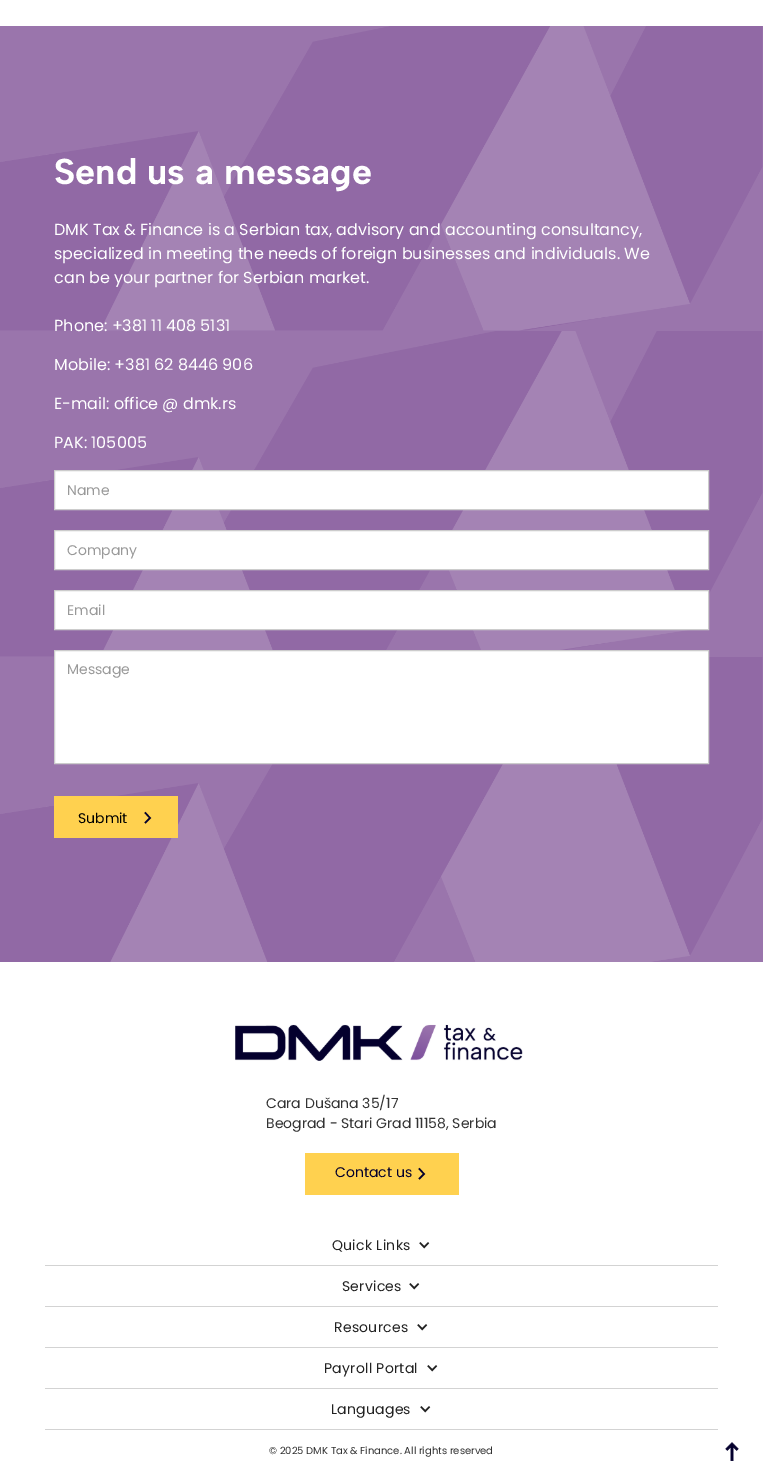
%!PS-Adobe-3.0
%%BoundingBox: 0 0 763 1472
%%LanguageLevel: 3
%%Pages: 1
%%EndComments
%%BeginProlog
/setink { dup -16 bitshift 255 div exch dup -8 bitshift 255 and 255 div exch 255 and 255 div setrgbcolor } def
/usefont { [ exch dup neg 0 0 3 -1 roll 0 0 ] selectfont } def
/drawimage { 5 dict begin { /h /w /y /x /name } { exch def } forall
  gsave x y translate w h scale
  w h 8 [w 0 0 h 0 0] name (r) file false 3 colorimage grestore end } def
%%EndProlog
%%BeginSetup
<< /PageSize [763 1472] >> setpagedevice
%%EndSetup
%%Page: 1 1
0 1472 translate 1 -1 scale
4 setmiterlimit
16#FFFFFF setink
0 0 763 1472 rectfill
(img1.raw) 0 26 763 936 drawimage
/AlbertSans-Bold 36 usefont
54 184 moveto (Send us a message) show
/Poppins-Regular 16 usefont
[
    [(DMK Tax & Finance is a Serbian tax, advisory and accounting consultancy,) 54 235]
    [(specialized in meeting the needs of foreign businesses and individuals. We) 54 259]
    [(can be your partner for Serbian market.) 54 283]
    [(Phone: +381 11 408 5131) 54 331]
    [(Mobile: +381 62 8446 906) 54 370]
    [(E-mail: office @ dmk.rs) 54 409]
    [(PAK: 105005) 54 448]
] { aload pop moveto show } forall
54.5 470.5 moveto 708.5 470.5 lineto 708.5 509.5 lineto 54.5 509.5 lineto closepath gsave fill grestore
16#CCCCCC setink
stroke
/Poppins-Regular 14 usefont
16#999999 setink
67 495 moveto (Name) show
16#FFFFFF setink
54.5 530.5 moveto 708.5 530.5 lineto 708.5 569.5 lineto 54.5 569.5 lineto closepath gsave fill grestore
16#CCCCCC setink
stroke
16#999999 setink
67 555 moveto (Company) show
16#FFFFFF setink
54.5 590.5 moveto 708.5 590.5 lineto 708.5 629.5 lineto 54.5 629.5 lineto closepath gsave fill grestore
16#CCCCCC setink
stroke
16#999999 setink
67 615 moveto (Email) show
16#FFFFFF setink
54.5 650.5 moveto 708.5 650.5 lineto 708.5 763.5 lineto 54.5 763.5 lineto closepath gsave fill grestore
16#CCCCCC setink
stroke
16#999999 setink
67 674 moveto (Message) show
16#FFD14F setink
54 796 124 42 rectfill
16#04002D setink
1.5 setlinewidth
145 823 moveto 150 818 lineto 145 812.5 lineto stroke
16#000000 setink
78 823 moveto (Submit) show
(img2.raw) 235 1024 288 37 drawimage
16#333333 setink
266 1108 moveto (Cara Dušana 35/17) show
266 1128 moveto (Beograd - Stari Grad 11158, Serbia) show
16#FFD14F setink
305 1153 154 42 rectfill
16#04002D setink
419 1179 moveto 424 1174 lineto 419 1168.5 lineto stroke
335 1177 moveto (Contact us) show
16#D3D3D3 setink
45 1265 673 1 rectfill
16#222222 setink
332 1250 moveto 0.25 0 (Quick Links) ashow
(img3.raw) 419 1242 11 7 drawimage
16#D3D3D3 setink
45 1306 673 1 rectfill
16#222222 setink
342 1291 moveto 0.25 0 (Services) ashow
(img3.raw) 409 1283 11 7 drawimage
16#D3D3D3 setink
45 1347 673 1 rectfill
16#222222 setink
334 1332 moveto 0.25 0 (Resources) ashow
(img3.raw) 417 1324 11 7 drawimage
16#D3D3D3 setink
45 1388 673 1 rectfill
16#222222 setink
324 1373 moveto 0.25 0 (Payroll Portal) ashow
(img3.raw) 427 1365 11 7 drawimage
16#D3D3D3 setink
45 1429 673 1 rectfill
16#222222 setink
331 1414 moveto 0.25 0 (Languages) ashow
(img3.raw) 420 1406 11 7 drawimage
/Poppins-Regular 10 usefont
16#333333 setink
269 1454 moveto (© 2025 DMK Tax & Finance. All rights reserved) show
(img4.raw) 725 1442 14 19 drawimage
showpage
%%EOF
